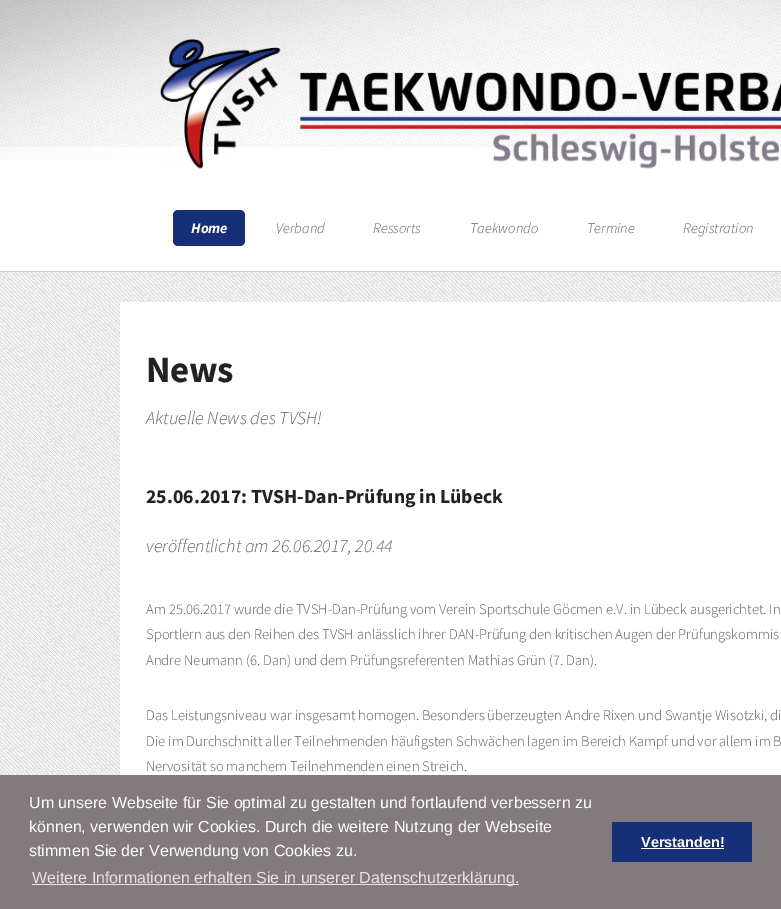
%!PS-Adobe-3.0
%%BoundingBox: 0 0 781 909
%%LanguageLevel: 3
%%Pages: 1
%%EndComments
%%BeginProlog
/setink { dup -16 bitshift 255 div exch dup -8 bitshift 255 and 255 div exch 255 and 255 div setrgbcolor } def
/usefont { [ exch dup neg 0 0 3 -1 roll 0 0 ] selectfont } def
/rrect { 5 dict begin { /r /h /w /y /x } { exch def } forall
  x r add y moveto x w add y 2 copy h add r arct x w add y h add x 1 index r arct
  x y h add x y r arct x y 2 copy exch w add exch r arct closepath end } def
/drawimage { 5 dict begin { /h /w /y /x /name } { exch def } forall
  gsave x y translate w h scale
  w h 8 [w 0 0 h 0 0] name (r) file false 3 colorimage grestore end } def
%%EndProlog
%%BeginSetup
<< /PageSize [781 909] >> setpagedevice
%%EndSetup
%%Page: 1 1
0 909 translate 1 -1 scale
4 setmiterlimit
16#FFFFFF setink
0 0 781 909 rectfill
16#CCCCCC setink
0 271 781 1 rectfill
(img1.raw) 0 0 781 147 drawimage
(img2.raw) 0 0 781 160 drawimage
(img3.raw) 160 39 621 130 drawimage
16#162F79 setink
173 210 72 36 5 rrect fill
/SourceSansPro-BoldItalic 14.65 usefont
16#FFFFFF setink
191 233 moveto (Home) show
/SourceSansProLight-LightItalic 14.65 usefont
16#5D5D5D setink
[
    [(Verband) 276 233]
    [(Ressorts) 373 233]
    [(Taekwondo) 470 233]
    [(Termine) 587 233]
    [(Registration) 683 233]
] { aload pop moveto show } forall
16#F7F7F7 setink
0 272 781 503 rectfill
(img4.raw) 0 272 781 503 drawimage
16#FFFFFF setink
120 302 661 473 rectfill
/SourceSansPro-Bold 37 usefont
16#252122 setink
146 382 moveto -0.5 0 (News) ashow
/SourceSansProLight-LightItalic 18.3 usefont
16#5D5D5D setink
146 424 moveto (Aktuelle News des TVSH!) show
/SourceSansPro-Bold 19.75 usefont
16#252122 setink
146 503 moveto (25.06.2017: TVSH-Dan-Prüfung in Lübeck) show
/SourceSansProLight-LightItalic 18.3 usefont
16#5D5D5D setink
146 552 moveto (veröffentlicht am 26.06.2017, 20.44) show
/SourceSansProLight-Light 14.65 usefont
[
    [(Am 25.06.2017 wurde die TVSH-Dan-Prüfung vom Verein Sportschule Göcmen e.V. in Lübeck ausgerichtet. In) 146 614]
    [(Sportlern aus den Reihen des TVSH anlässlich ihrer DAN-Prüfung den kritischen Augen der Prüfungskommis) 146 639]
    [(Andre Neumann \(6. Dan\) und dem Prüfungsreferenten Mathias Grün \(7. Dan\).) 146 665]
    [(Das Leistungsniveau war insgesamt homogen. Besonders überzeugten Andre Rixen und Swantje Wisotzki, di) 146 720]
    [(Die im Durchschnitt aller Teilnehmenden häufigsten Schwächen lagen im Bereich Kampf und vor allem im B) 146 746]
    [(Nervosität so manchem Teilnehmenden einen Streich.) 146 771]
] { aload pop moveto show } forall
16#827A7C setink
0 775 781 134 rectfill
/LiberationSans-Regular 16 usefont
16#FFFFFF setink
[
    [(Um unsere Webseite für Sie optimal zu gestalten und fortlaufend verbessern zu) 29 808]
    [(können, verwenden wir Cookies. Durch die weitere Nutzung der Webseite) 29 832]
    [(stimmen Sie der Verwendung von Cookies zu.) 29 856]
] { aload pop moveto show } forall
16#E6E4E5 setink
32 884 487 1 rectfill
32 883 moveto (Weitere Informationen erhalten Sie in unserer Datenschutzerklärung.) show
16#162F79 setink
612 822 140 40 rectfill
/LiberationSans-Bold 14.5 usefont
16#FFFFFF setink
641 847 moveto (Verstanden!) show
641 848 83 1 rectfill
showpage
%%EOF
